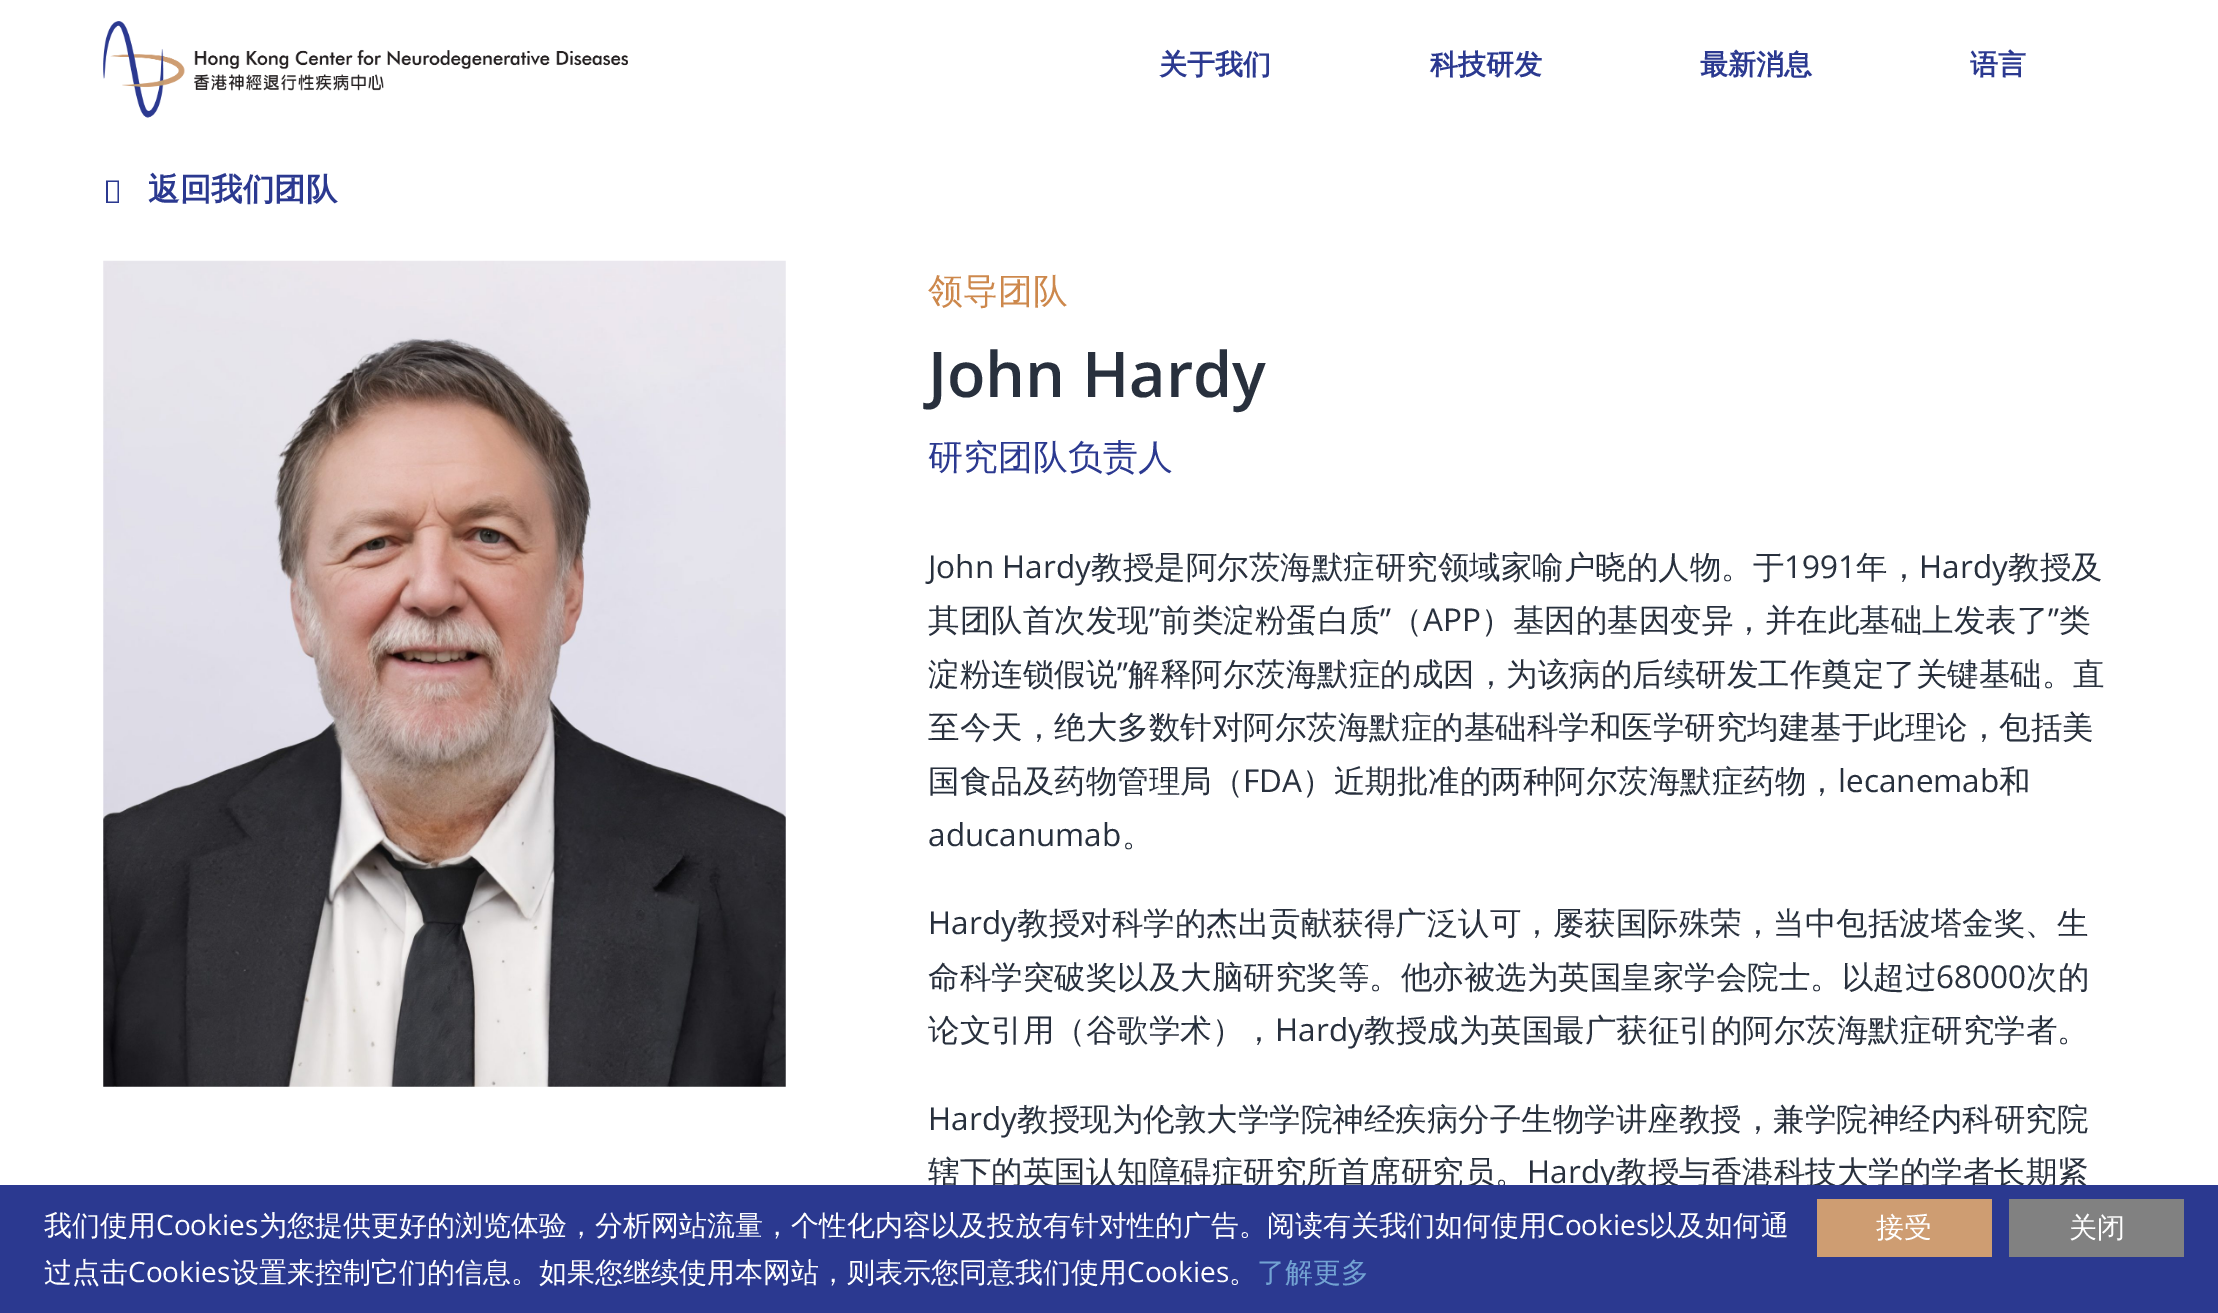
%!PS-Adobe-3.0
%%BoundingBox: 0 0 2218 1313
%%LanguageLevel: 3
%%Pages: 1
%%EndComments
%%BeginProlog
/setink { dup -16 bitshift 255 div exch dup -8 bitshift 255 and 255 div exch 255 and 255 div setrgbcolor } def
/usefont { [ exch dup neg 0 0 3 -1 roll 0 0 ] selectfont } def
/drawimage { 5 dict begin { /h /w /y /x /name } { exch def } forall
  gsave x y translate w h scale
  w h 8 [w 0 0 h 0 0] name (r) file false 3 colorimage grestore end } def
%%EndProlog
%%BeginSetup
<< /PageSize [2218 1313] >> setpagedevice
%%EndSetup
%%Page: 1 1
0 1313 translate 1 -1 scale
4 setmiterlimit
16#FFFFFF setink
0 0 2218 1313 rectfill
(img1.raw) 103 21 525 97 drawimage
/WenQuanYiZenHei-Bold 28 usefont
16#2B3990 setink
[
    [(关于我们) 1159 74]
    [(科技研发) 1430 74]
    [(最新消息) 1700 74]
    [(语言) 1970 74]
] { aload pop moveto show } forall
106 203 moveto 106 180.5 lineto 119 180.5 lineto 119 203 lineto closepath 108 201.5 moveto 117.5 201.5 lineto 117.5 182 lineto 108 182 lineto closepath fill
/WenQuanYiZenHei-Bold 31.5 usefont
148 200 moveto (返回我们团队) show
(img2.raw) 103 260 683 827 drawimage
/WenQuanYiZenHei-Medium 35 usefont
16#CD884C setink
928 303 moveto (领导团队) show
/OpenSans-SemiBold 63 usefont
16#28303D setink
928 397 moveto (John Hardy) show
/WenQuanYiZenHei-Medium 35 usefont
16#2B3990 setink
928 469 moveto (研究团队负责人) show
/OpenSans-Regular 31.5 usefont
16#28303D setink
928 578 moveto (John Hardy) show
/WenQuanYiZenHei-Medium 31.5 usefont
1091 578 moveto (教授是阿尔茨海默症研究领域家喻户晓的人物。于) show
/OpenSans-Regular 31.5 usefont
1784 578 moveto (1991) show
/WenQuanYiZenHei-Medium 31.5 usefont
1856 578 moveto (年，) show
/OpenSans-Regular 31.5 usefont
1919 578 moveto (Hardy) show
/WenQuanYiZenHei-Medium 31.5 usefont
2008 578 moveto (教授及) show
928 631 moveto (其团队首次发现) show
/OpenSans-Regular 31.5 usefont
1149 631 moveto (”) show
/WenQuanYiZenHei-Medium 31.5 usefont
1160 631 moveto (前类淀粉蛋白质) show
/OpenSans-Regular 31.5 usefont
1380 631 moveto (”) show
/WenQuanYiZenHei-Medium 31.5 usefont
1391 631 moveto (（) show
/OpenSans-Regular 31.5 usefont
1423 631 moveto (APP) show
/WenQuanYiZenHei-Medium 31.5 usefont
1481 631 moveto (）基因的基因变异，并在此基础上发表了) show
/OpenSans-Regular 31.5 usefont
2048 631 moveto (”) show
/WenQuanYiZenHei-Medium 31.5 usefont
2059 631 moveto (类) show
928 685 moveto (淀粉连锁假说) show
/OpenSans-Regular 31.5 usefont
1117 685 moveto (”) show
/WenQuanYiZenHei-Medium 31.5 usefont
[
    [(解释阿尔茨海默症的成因，为该病的后续研发工作奠定了关键基础。直) 1128 685]
    [(至今天，绝大多数针对阿尔茨海默症的基础科学和医学研究均建基于此理论，包括美) 928 738]
    [(国食品及药物管理局（) 928 792]
] { aload pop moveto show } forall
/OpenSans-Regular 31.5 usefont
1243 792 moveto (FDA) show
/WenQuanYiZenHei-Medium 31.5 usefont
1302 792 moveto (）近期批准的两种阿尔茨海默症药物，) show
/OpenSans-Regular 31.5 usefont
1838 792 moveto (lecanemab) show
/WenQuanYiZenHei-Medium 31.5 usefont
1999 792 moveto (和) show
/OpenSans-Regular 31.5 usefont
928 846 moveto (aducanumab) show
/WenQuanYiZenHei-Medium 31.5 usefont
1122 846 moveto (。) show
/OpenSans-Regular 31.5 usefont
928 934 moveto (Hardy) show
/WenQuanYiZenHei-Medium 31.5 usefont
1017 934 moveto (教授对科学的杰出贡献获得广泛认可，屡获国际殊荣，当中包括波塔金奖、生) show
928 988 moveto (命科学突破奖以及大脑研究奖等。他亦被选为英国皇家学会院士。以超过) show
/OpenSans-Regular 31.5 usefont
1936 988 moveto (68000) show
/WenQuanYiZenHei-Medium 31.5 usefont
2026 988 moveto (次的) show
928 1041 moveto (论文引用（谷歌学术），) show
/OpenSans-Regular 31.5 usefont
1275 1041 moveto (Hardy) show
/WenQuanYiZenHei-Medium 31.5 usefont
1364 1041 moveto (教授成为英国最广获征引的阿尔茨海默症研究学者。) show
/OpenSans-Regular 31.5 usefont
928 1130 moveto (Hardy) show
/WenQuanYiZenHei-Medium 31.5 usefont
1017 1130 moveto (教授现为伦敦大学学院神经疾病分子生物学讲座教授，兼学院神经内科研究院) show
928 1183 moveto (辖下的英国认知障碍症研究所首席研究员。) show
/OpenSans-Regular 31.5 usefont
1527 1183 moveto (Hardy) show
/WenQuanYiZenHei-Medium 31.5 usefont
1616 1183 moveto (教授与香港科技大学的学者长期紧) show
16#2B3990 setink
0 1185 2218 128 rectfill
/WenQuanYiZenHei-Medium 28 usefont
16#FFFFFF setink
44 1235 moveto (我们使用) show
/OpenSans-Regular 28 usefont
156 1235 moveto (Cookies) show
/WenQuanYiZenHei-Medium 28 usefont
259 1235 moveto (为您提供更好的浏览体验，分析网站流量，个性化内容以及投放有针对性的广告。阅读有关我们如何使用) show
/OpenSans-Regular 28 usefont
1547 1235 moveto (Cookies) show
/WenQuanYiZenHei-Medium 28 usefont
1649 1235 moveto (以及如何通) show
16#CE9D72 setink
1817 1199 175 58 rectfill
16#FFFFFF setink
1876 1237 moveto (接受) show
16#818181 setink
2009 1199 175 58 rectfill
16#FFFFFF setink
2069 1237 moveto (关闭) show
44 1282 moveto (过点击) show
/OpenSans-Regular 28 usefont
128 1282 moveto (Cookies) show
/WenQuanYiZenHei-Medium 28 usefont
231 1282 moveto (设置来控制它们的信息。如果您继续使用本网站，则表示您同意我们使用) show
/OpenSans-Regular 28 usefont
1127 1282 moveto (Cookies) show
/WenQuanYiZenHei-Medium 28 usefont
1229 1282 moveto (。) show
16#73A3D3 setink
1257 1282 moveto (了解更多) show
showpage
%%EOF
